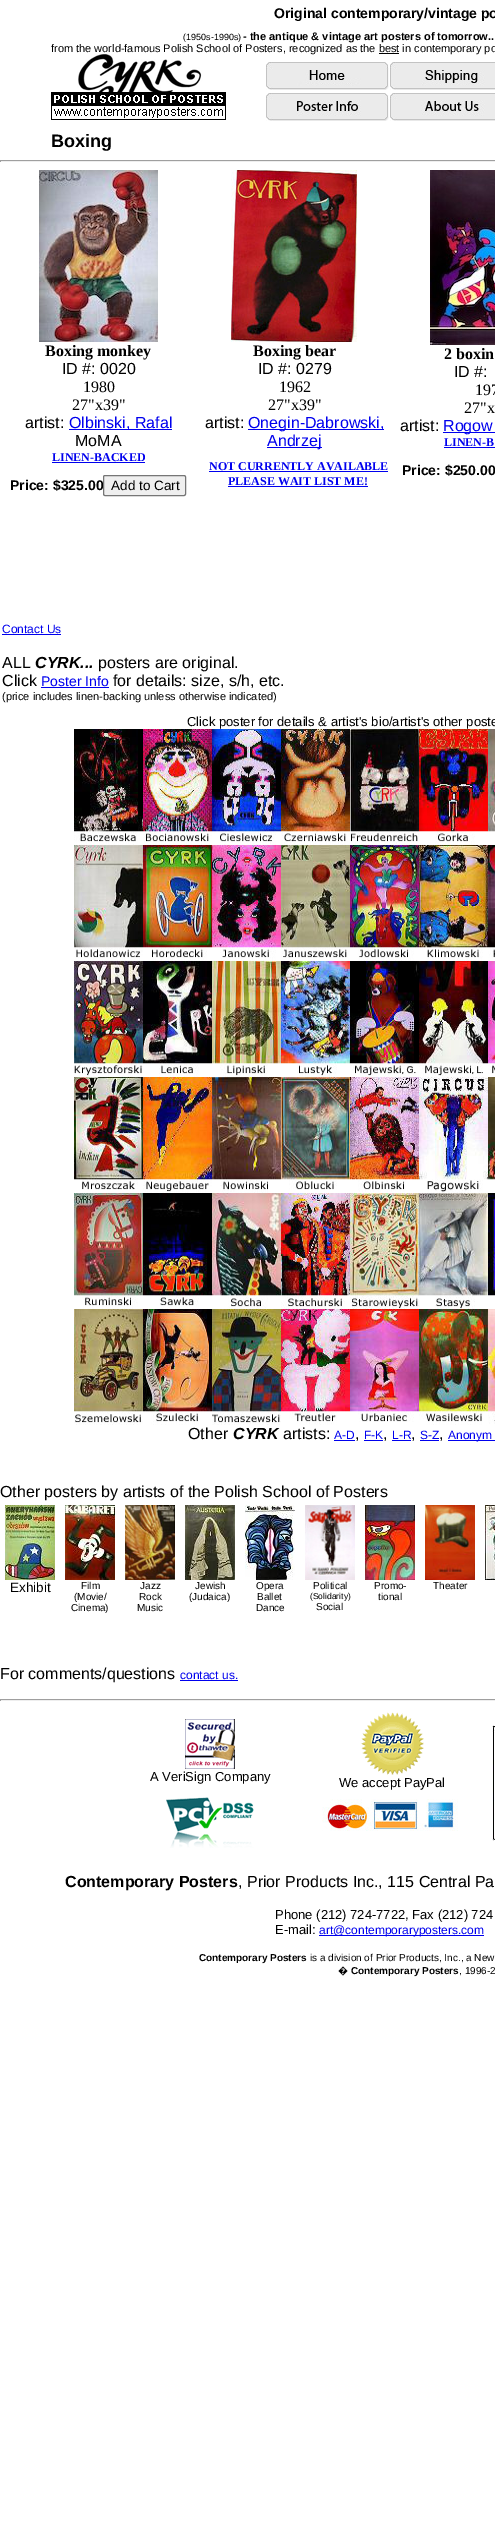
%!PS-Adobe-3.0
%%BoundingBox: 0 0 495 2528
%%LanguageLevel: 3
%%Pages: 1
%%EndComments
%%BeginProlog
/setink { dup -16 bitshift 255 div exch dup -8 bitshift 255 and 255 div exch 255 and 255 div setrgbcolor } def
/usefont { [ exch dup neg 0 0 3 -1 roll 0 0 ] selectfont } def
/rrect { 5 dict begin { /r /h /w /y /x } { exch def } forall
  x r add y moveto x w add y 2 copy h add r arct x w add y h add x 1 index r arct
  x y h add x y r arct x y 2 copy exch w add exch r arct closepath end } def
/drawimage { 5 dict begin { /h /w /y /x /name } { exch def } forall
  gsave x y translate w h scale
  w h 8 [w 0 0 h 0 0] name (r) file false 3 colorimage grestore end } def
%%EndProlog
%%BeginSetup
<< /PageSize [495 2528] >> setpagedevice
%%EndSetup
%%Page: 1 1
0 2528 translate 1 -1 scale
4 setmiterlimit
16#FFFFFF setink
0 0 495 2528 rectfill
/LiberationSans-Bold 14 usefont
16#000000 setink
274 18 moveto (Original contemporary/vintage po) show
/LiberationSans-Regular 9 usefont
183 40 moveto (\(1950s-1990s\)) show
/LiberationSans-Bold 11 usefont
243 40 moveto (- the antique & vintage art posters of tomorrow..) show
/LiberationSans-Regular 11 usefont
51 52 moveto (from the world-famous Polish School of Posters, recognized as the best in contemporary po) show
379 53 20 1 rectfill
(img1.raw) 51 54 175 66 drawimage
(img2.raw) 266 62 123 28 drawimage
(img3.raw) 390 62 105 28 drawimage
(img4.raw) 266 93 123 28 drawimage
(img5.raw) 390 93 105 28 drawimage
/LiberationSans-Bold 18 usefont
51 147 moveto (Boxing) show
[
    [0 160 495 1 16#9F9F9F]
    [0 161 495 1 16#EEEEEE]
    [0 160 1 2 16#9F9F9F]
] { aload pop setink rectfill } forall
(img6.raw) 39 170 119 172 drawimage
/LiberationSerif-Bold 16 usefont
16#000000 setink
45 356 moveto (Boxing monkey) show
/LiberationSans-Regular 16 usefont
62 374 moveto (ID #: 0020) show
/LiberationSerif-Regular 16 usefont
83 392 moveto (1980) show
72 410 moveto (27"x39") show
/LiberationSans-Regular 16 usefont
25 428 moveto (artist:) show
16#0000EE setink
69 429 103 1 rectfill
69 428 moveto (Olbinski, Rafal) show
16#000000 setink
75 446 moveto (MoMA) show
/LiberationSerif-Bold 12 usefont
16#0000EE setink
52 461 moveto (LINEN-BACKED) show
52 462 93 1 rectfill
/LiberationSans-Bold 14 usefont
16#000000 setink
10 490 moveto (Price: $325.00) show
16#EFEFEF setink
103.5 475.5 82 20 1.5 rrect gsave fill grestore
16#767676 setink
stroke
/LiberationSans-Regular 13.5 usefont
16#000000 setink
111 490 moveto (Add to Cart) show
(img7.raw) 231 170 126 172 drawimage
/LiberationSerif-Bold 16 usefont
253 356 moveto (Boxing bear) show
/LiberationSans-Regular 16 usefont
258 374 moveto (ID #: 0279) show
/LiberationSerif-Regular 16 usefont
279 392 moveto (1962) show
268 410 moveto (27"x39") show
/LiberationSans-Regular 16 usefont
205 428 moveto (artist:) show
16#0000EE setink
248 429 136 1 rectfill
248 428 moveto (Onegin-Dabrowski,) show
267 447 55 1 rectfill
267 446 moveto (Andrzej) show
/LiberationSerif-Bold 12 usefont
209 470 moveto (NOT CURRENTLY AVAILABLE) show
209 471 179 1 rectfill
228 485 moveto (PLEASE WAIT LIST ME!) show
228 486 140 1 rectfill
(img8.raw) 430 170 65 175 drawimage
/LiberationSerif-Bold 16 usefont
16#000000 setink
444 359 moveto (2 boxin) show
/LiberationSans-Regular 16 usefont
454 377 moveto (ID #:) show
/LiberationSerif-Regular 16 usefont
475 395 moveto (197) show
464 413 moveto (27"x) show
/LiberationSans-Regular 16 usefont
400 431 moveto (artist:) show
16#0000EE setink
443 432 52 1 rectfill
443 431 moveto (Rogow) show
/LiberationSerif-Bold 12 usefont
444 446 moveto (LINEN-B) show
444 447 51 1 rectfill
/LiberationSans-Bold 14 usefont
16#000000 setink
402 475 moveto (Price: $250.00) show
/LiberationSans-Regular 12 usefont
16#0000EE setink
2 633 moveto (Contact Us) show
2 634 59 1 rectfill
/LiberationSans-Regular 16 usefont
16#000000 setink
2 668 moveto (ALL) show
/LiberationSans-BoldItalic 16 usefont
35 668 moveto (CYRK...) show
/LiberationSans-Regular 16 usefont
98 668 moveto (posters are original.) show
2 686 moveto (Click) show
/LiberationSans-Regular 14 usefont
16#0000EE setink
41 686 moveto (Poster Info) show
41 687 68 1 rectfill
/LiberationSans-Regular 16 usefont
16#000000 setink
113 686 moveto (for details: size, s/h, etc.) show
/LiberationSans-Regular 11 usefont
2 700 moveto (\(price includes linen-backing unless otherwise indicated\)) show
/LiberationSans-Regular 13 usefont
187 726 moveto (Click poster for details & artist's bio/artist's other poste) show
(img9.raw) 74 729 69 116 drawimage
(img10.raw) 143 729 69 116 drawimage
(img11.raw) 212 729 69 116 drawimage
(img12.raw) 281 729 69 116 drawimage
(img13.raw) 350 729 69 116 drawimage
(img14.raw) 419 729 69 116 drawimage
(img15.raw) 488 729 7 103 drawimage
(img16.raw) 74 845 69 116 drawimage
(img17.raw) 143 845 69 116 drawimage
(img18.raw) 212 845 69 116 drawimage
(img19.raw) 281 845 69 113 drawimage
(img20.raw) 350 845 69 116 drawimage
(img21.raw) 419 845 69 116 drawimage
(img22.raw) 488 845 7 113 drawimage
(img23.raw) 74 961 69 116 drawimage
(img24.raw) 143 961 69 116 drawimage
(img25.raw) 212 961 69 116 drawimage
(img26.raw) 281 961 69 116 drawimage
(img27.raw) 350 961 69 116 drawimage
(img28.raw) 419 961 69 116 drawimage
(img29.raw) 488 961 7 113 drawimage
(img30.raw) 74 1077 69 113 drawimage
(img31.raw) 143 1077 69 116 drawimage
(img32.raw) 212 1077 69 116 drawimage
(img33.raw) 281 1077 69 113 drawimage
(img34.raw) 350 1077 69 115 drawimage
(img35.raw) 419 1077 69 116 drawimage
(img36.raw) 488 1077 7 103 drawimage
(img37.raw) 74 1193 69 116 drawimage
(img38.raw) 143 1193 69 116 drawimage
(img39.raw) 212 1193 69 116 drawimage
(img40.raw) 281 1193 69 116 drawimage
(img41.raw) 350 1193 69 116 drawimage
(img42.raw) 419 1193 69 116 drawimage
(img43.raw) 488 1193 7 103 drawimage
(img44.raw) 74 1309 69 116 drawimage
(img45.raw) 143 1309 69 116 drawimage
(img46.raw) 212 1309 69 116 drawimage
(img47.raw) 281 1309 69 116 drawimage
(img48.raw) 350 1309 69 113 drawimage
(img49.raw) 419 1309 69 116 drawimage
(img50.raw) 488 1309 7 115 drawimage
/LiberationSans-Regular 16 usefont
188 1439 moveto (Other) show
/LiberationSans-BoldItalic 16 usefont
233 1439 moveto (CYRK) show
/LiberationSans-Regular 16 usefont
283 1439 moveto (artists:) show
/LiberationSans-Regular 12 usefont
16#0000EE setink
334 1439 moveto (A-D) show
334 1440 21 1 rectfill
/LiberationSans-Regular 16 usefont
16#000000 setink
355 1439 moveto (,) show
/LiberationSans-Regular 12 usefont
16#0000EE setink
364 1439 moveto (F-K) show
364 1440 19 1 rectfill
/LiberationSans-Regular 16 usefont
16#000000 setink
383 1439 moveto (,) show
/LiberationSans-Regular 12 usefont
16#0000EE setink
392 1439 moveto (L-R) show
392 1440 19 1 rectfill
/LiberationSans-Regular 16 usefont
16#000000 setink
411 1439 moveto (,) show
/LiberationSans-Regular 12 usefont
16#0000EE setink
420 1439 moveto (S-Z) show
420 1440 19 1 rectfill
/LiberationSans-Regular 16 usefont
16#000000 setink
439 1439 moveto (,) show
16#0000EE setink
448 1440 47 1 rectfill
/LiberationSans-Regular 12 usefont
448 1439 moveto (Anonym) show
/LiberationSans-Regular 16 usefont
16#000000 setink
0 1497 moveto (Other posters by artists of the Polish School of Posters) show
(img51.raw) 485 1505 10 75 drawimage
(img52.raw) 5 1505 50 75 drawimage
/LiberationSans-Regular 13.5 usefont
10 1592 moveto (Exhibit) show
(img53.raw) 65 1505 50 75 drawimage
/LiberationSans-Regular 10 usefont
[
    [(Film) 81 1589]
    [(\(Movie/) 74 1600]
    [(Cinema\)) 71 1611]
] { aload pop moveto show } forall
(img54.raw) 125 1505 50 75 drawimage
[
    [(Jazz) 140 1589]
    [(Rock) 139 1600]
    [(Music) 137 1611]
] { aload pop moveto show } forall
(img55.raw) 185 1505 50 75 drawimage
195 1589 moveto (Jewish) show
189 1600 moveto (\(Judaica\)) show
(img56.raw) 245 1505 50 75 drawimage
[
    [(Opera) 256 1589]
    [(Ballet) 257 1600]
    [(Dance) 256 1611]
] { aload pop moveto show } forall
(img57.raw) 305 1505 50 75 drawimage
313 1589 moveto (Political) show
/LiberationSans-Regular 8.5 usefont
310 1599 moveto (\(Solidarity\)) show
/LiberationSans-Regular 10 usefont
316 1610 moveto (Social) show
(img58.raw) 365 1505 50 75 drawimage
374 1589 moveto (Promo-) show
378 1600 moveto (tional) show
(img59.raw) 425 1505 50 75 drawimage
433 1589 moveto (Theater) show
/LiberationSans-Regular 16 usefont
0 1679 moveto (For comments/questions) show
/LiberationSans-Regular 12 usefont
16#0000EE setink
180 1679 moveto (contact us.) show
[
    [180 1680 58 1 16#0000EE]
    [0 1699 495 1 16#9F9F9F]
    [0 1700 495 1 16#EEEEEE]
    [0 1699 1 2 16#9F9F9F]
] { aload pop setink rectfill } forall
(img60.raw) 185 1719 50 50 drawimage
/LiberationSans-Regular 13 usefont
16#000000 setink
150 1781 moveto (A VeriSign Company) show
(img61.raw) 361 1712 63 63 drawimage
339 1787 moveto (We accept PayPal) show
(img62.raw) 492 1725 3 116 drawimage
(img63.raw) 166 1797 88 51 drawimage
(img64.raw) 322 1799 136 32 drawimage
/LiberationSans-Bold 16 usefont
65 1887 moveto (Contemporary Posters) show
/LiberationSans-Regular 16 usefont
238 1887 moveto (, Prior Products Inc., 115 Central Pa) show
/LiberationSans-Regular 13 usefont
275 1919 moveto (Phone \(212\) 724-7722, Fax \(212\) 724) show
275 1934 moveto (E-mail:) show
16#0000EE setink
319 1935 165 1 rectfill
/LiberationSans-Regular 12 usefont
319 1934 moveto (art@contemporaryposters.com) show
/LiberationSans-Bold 10 usefont
16#000000 setink
199 1961 moveto (Contemporary Posters) show
/LiberationSans-Regular 10 usefont
310 1961 moveto (is a division of Prior Products, Inc., a New) show
/NotoSans-Bold 10 usefont
338 1974 moveto (�) show
/LiberationSans-Bold 10 usefont
351 1974 moveto (Contemporary Posters) show
/LiberationSans-Regular 10 usefont
459 1974 moveto (, 1996-2) show
showpage
%%EOF
